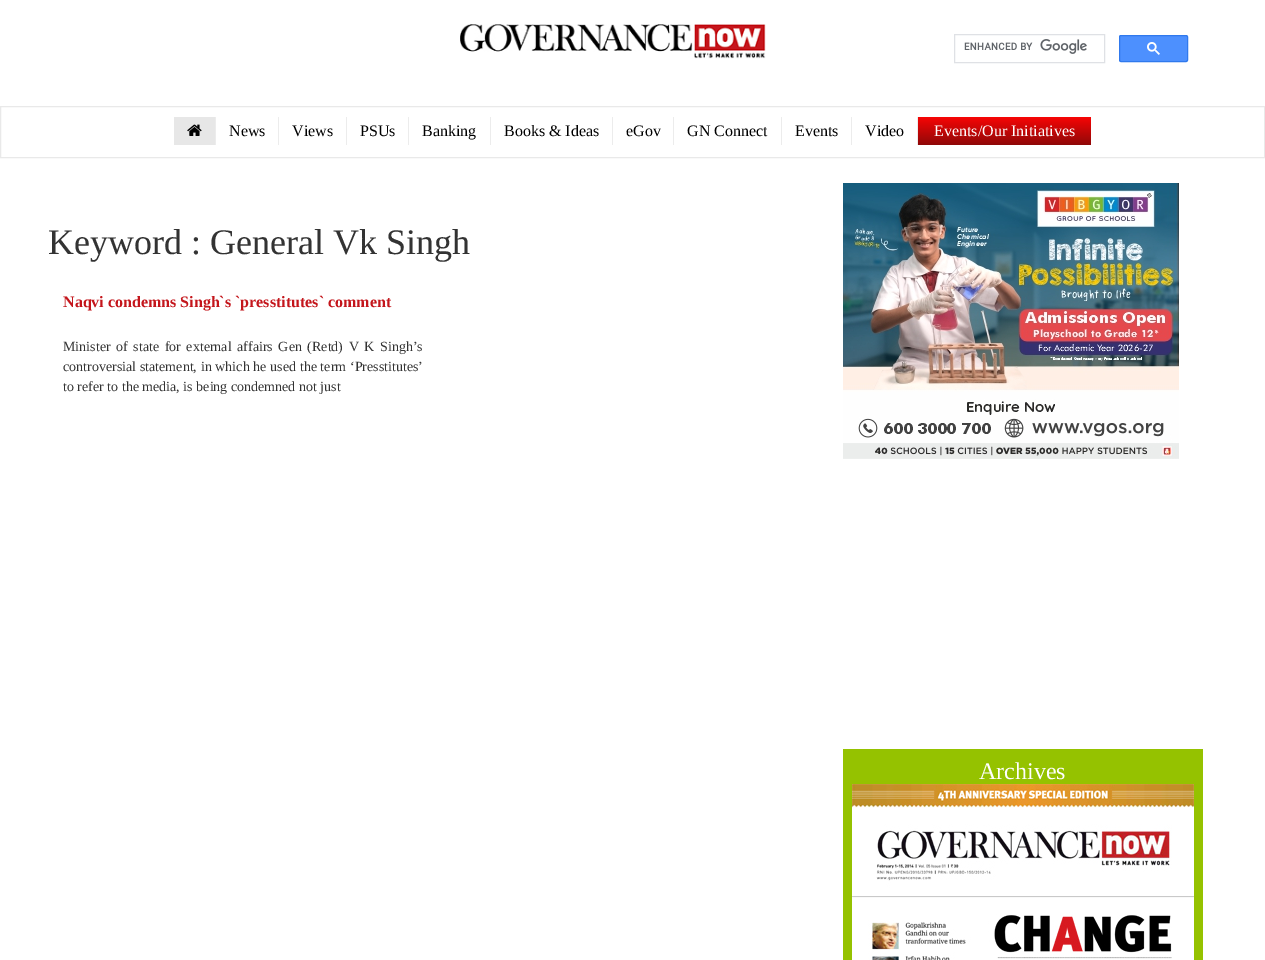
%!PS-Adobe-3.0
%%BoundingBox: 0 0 1265 960
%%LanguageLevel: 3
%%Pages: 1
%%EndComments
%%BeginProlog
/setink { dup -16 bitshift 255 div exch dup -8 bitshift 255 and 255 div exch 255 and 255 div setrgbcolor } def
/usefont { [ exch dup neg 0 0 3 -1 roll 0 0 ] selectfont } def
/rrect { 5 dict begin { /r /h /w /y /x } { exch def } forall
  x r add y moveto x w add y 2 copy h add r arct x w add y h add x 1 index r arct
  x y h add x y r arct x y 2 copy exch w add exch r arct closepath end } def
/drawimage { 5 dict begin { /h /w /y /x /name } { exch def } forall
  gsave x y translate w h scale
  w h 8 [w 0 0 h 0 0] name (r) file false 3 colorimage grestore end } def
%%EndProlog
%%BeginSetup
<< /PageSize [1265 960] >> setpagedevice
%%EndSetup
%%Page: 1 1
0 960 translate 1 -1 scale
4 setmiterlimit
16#FFFFFF setink
0 0 1265 960 rectfill
(img1.raw) 460 24 306 35 drawimage
16#DFE1E5 setink
954.5 34.5 150 28 rectstroke
(img2.raw) 964 39 123 15 drawimage
16#4D90FE setink
1119.5 35.5 68 26 1.5 rrect gsave fill grestore
16#3079ED setink
stroke
(img3.raw) 1147 42 13 13 drawimage
16#E9E9E9 setink
0.5 106.5 1264 51 rectstroke
16#E7E7E7 setink
174 117 41 28 rectfill
16#ECECEC setink
215 117 1 28 rectfill
(img4.raw) 187 124 15 12 drawimage
278 117 1 28 rectfill
/LiberationSerif-Regular 16 usefont
16#000000 setink
229 136 moveto (News) show
16#ECECEC setink
346 117 1 28 rectfill
16#000000 setink
292 136 moveto (Views) show
16#ECECEC setink
408 117 1 28 rectfill
16#000000 setink
360 136 moveto (PSUs) show
16#ECECEC setink
490 117 1 28 rectfill
16#000000 setink
422 136 moveto (Banking) show
16#ECECEC setink
612 117 1 28 rectfill
16#000000 setink
504 136 moveto (Books & Ideas) show
16#ECECEC setink
673 117 1 28 rectfill
16#000000 setink
626 136 moveto (eGov) show
16#ECECEC setink
781 117 1 28 rectfill
16#000000 setink
687 136 moveto (GN Connect) show
16#ECECEC setink
851 117 1 28 rectfill
16#000000 setink
795 136 moveto (Events) show
16#ECECEC setink
917 117 1 28 rectfill
16#000000 setink
865 136 moveto (Video) show
gsave 918 117 moveto 1091 117 lineto 1091 145 lineto 918 145 lineto closepath clip newpath
<< /ShadingType 2 /ColorSpace /DeviceRGB /Coords [1005 117 1005 145] /Extend [true true] /Function << /FunctionType 2 /Domain [0 1] /C0 [0.969 0.02 0.02] /C1 [0.561 0.031 0.031] /N 1 >> >> shfill grestore
16#FFFFFF setink
934 136 moveto (Events/Our Initiatives) show
/LiberationSerif-Regular 36 usefont
16#333333 setink
48 254 moveto (Keyword : General Vk Singh) show
/LiberationSerif-Bold 16 usefont
16#C4161C setink
63 307 moveto (Naqvi condemns Singh`s `presstitutes` comment) show
/LiberationSerif-Regular 14 usefont
16#333333 setink
63 351 moveto 2.1 0 32 (Minister of state for external affairs Gen \(Retd\) V K Singh’s) widthshow
63 371 moveto 0.25 0 32 (controversial statement, in which he used the term ‘Presstitutes’) widthshow
63 391 moveto (to refer to the media, is being condemned not just) show
(img5.raw) 843 183 336 276 drawimage
16#95C200 setink
843 749 360 211 rectfill
/LiberationSerif-Regular 24 usefont
16#FFFFFF setink
979 779 moveto (Archives) show
(img6.raw) 852 784 342 176 drawimage
showpage
%%EOF
